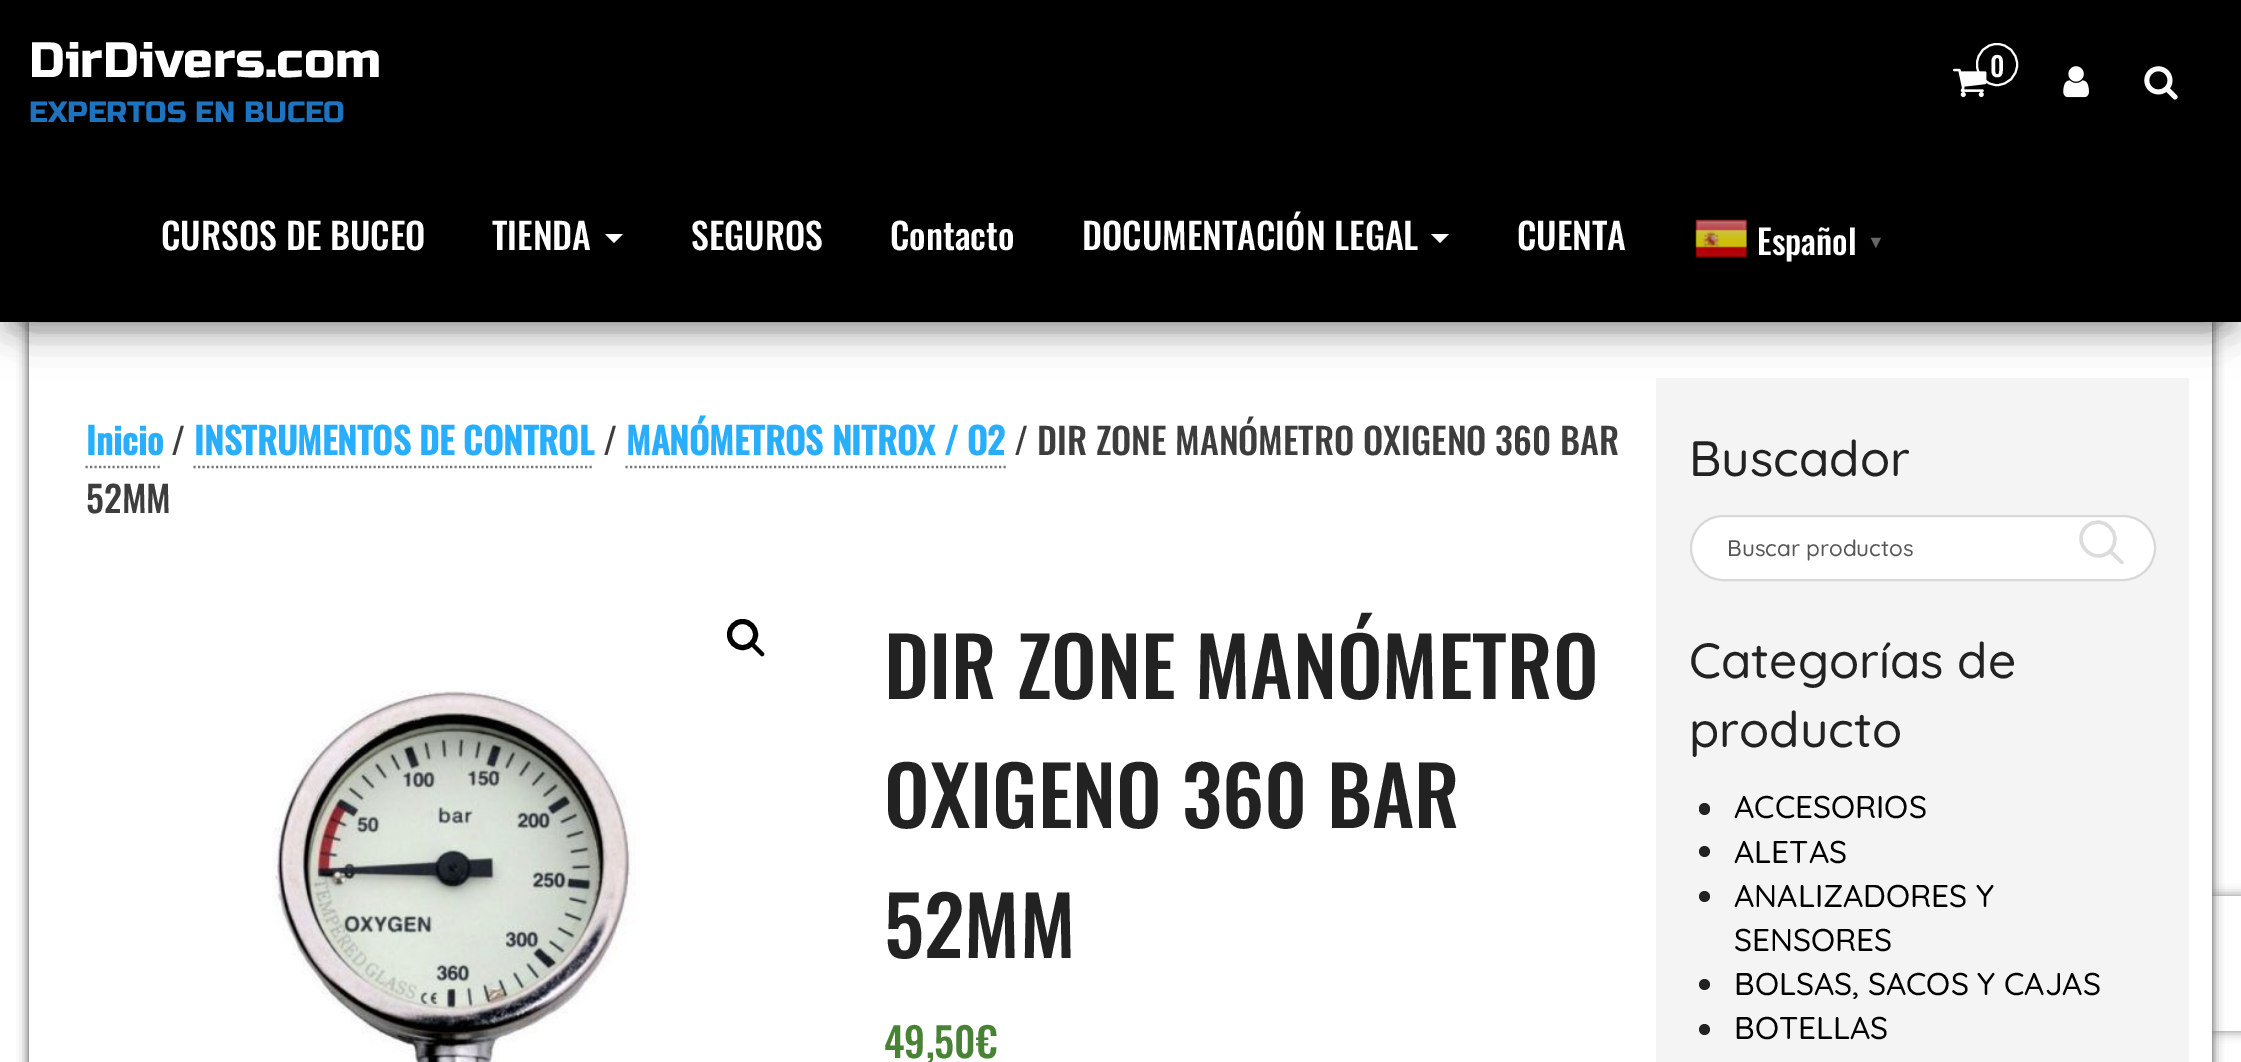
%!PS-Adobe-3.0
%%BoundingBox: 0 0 2241 1062
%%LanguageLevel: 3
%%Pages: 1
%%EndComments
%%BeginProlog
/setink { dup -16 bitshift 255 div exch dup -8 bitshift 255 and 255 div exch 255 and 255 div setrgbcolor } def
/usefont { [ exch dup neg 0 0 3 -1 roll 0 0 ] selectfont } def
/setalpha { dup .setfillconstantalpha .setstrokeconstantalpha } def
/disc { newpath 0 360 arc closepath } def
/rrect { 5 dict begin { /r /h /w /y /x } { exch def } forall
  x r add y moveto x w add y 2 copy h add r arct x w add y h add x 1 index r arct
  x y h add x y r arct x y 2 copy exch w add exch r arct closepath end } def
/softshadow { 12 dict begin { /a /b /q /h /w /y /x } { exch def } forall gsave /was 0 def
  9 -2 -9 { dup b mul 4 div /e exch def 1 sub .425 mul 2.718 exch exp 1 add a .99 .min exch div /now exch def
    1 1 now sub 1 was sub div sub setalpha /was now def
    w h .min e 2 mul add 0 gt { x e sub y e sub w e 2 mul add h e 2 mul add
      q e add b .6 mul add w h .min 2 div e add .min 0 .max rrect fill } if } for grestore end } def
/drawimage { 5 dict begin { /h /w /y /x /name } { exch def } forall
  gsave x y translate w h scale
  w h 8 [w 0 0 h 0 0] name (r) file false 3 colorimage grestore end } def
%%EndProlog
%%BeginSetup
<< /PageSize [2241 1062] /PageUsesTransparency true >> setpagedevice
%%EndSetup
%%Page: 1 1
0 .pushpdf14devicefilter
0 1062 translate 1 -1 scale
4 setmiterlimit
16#FFFFFF setink
0 0 2241 1062 rectfill
16#000000 setink
29 322 2183 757 0 5.5 0.75 softshadow
gsave
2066 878 moveto 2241 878 lineto 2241 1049 lineto 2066 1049 lineto closepath 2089 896 moveto 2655 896 lineto 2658 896 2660 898 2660 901 curveto 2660 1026 lineto 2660 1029 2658 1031 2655 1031 curveto 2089 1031 lineto 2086 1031 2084 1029 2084 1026 curveto 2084 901 lineto 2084 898 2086 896 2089 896 curveto closepath eoclip newpath
16#808080 setink
2084 896 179 135 5 5.5 1 softshadow
grestore
16#FFFFFF setink
29 322 2183 740 rectfill
16#000000 setink
11 29 2219 300 0 11 0.2 softshadow
16#F4F4F4 setink
1656 378 533 684 rectfill
16#000000 setink
0 7 2241 322 0 22.5 0.12 softshadow
27 50 2187 267 0 22.5 0.42 softshadow
0 0 2241 322 rectfill
/RussoOne-Regular 49.5 usefont
16#FFFFFF setink
29 77 moveto (DirDivers.com) show
/RussoOne-Regular 29.25 usefont
16#1E73BE setink
29 122 moveto (EXPERTOS EN BUCEO) show
(img1.raw) 1953 68 34 30 drawimage
16#FFFFFF setink
2 setlinewidth
1977 44 40 41 20 rrect stroke
/Oswald-Medium 27 usefont
1990 77 moveto (0) show
(img2.raw) 2063 66 26 32 drawimage
(img3.raw) 2144 66 34 34 drawimage
/Oswald-Medium 36 usefont
161 250 moveto (CURSOS DE BUCEO) show
492 250 moveto (TIENDA) show
605 234 moveto 623 234 lineto 614 243 lineto closepath fill
[
    [(SEGUROS) 691 250]
    [(Contacto) 890 250]
    [(DOCUMENTACIÓN LEGAL) 1082 250]
] { aload pop moveto show } forall
1431 234 moveto 1449 234 lineto 1440 243 lineto closepath fill
1517 250 moveto (CUENTA) show
(img4.raw) 1695 219 52 39 drawimage
/Oswald-Medium 34 usefont
1757 255 moveto (Español) show
/LiberationSerif-Bold 18 usefont
16#666666 setink
1867 248 moveto (▼) show
/Oswald-Bold 36 usefont
16#28AEFC setink
86 455 moveto (Inicio) show
16#777777 setink
2.2 setlinewidth
[2.25 2.25] 0 setdash
85.5 467 moveto 162 467 lineto stroke
/Oswald-Medium 36 usefont
16#3D3D3D setink
171 455 moveto (/) show
/Oswald-Bold 36 usefont
16#28AEFC setink
194 455 moveto (INSTRUMENTOS DE CONTROL) show
16#777777 setink
193.5 467 moveto 594 467 lineto stroke
/Oswald-Medium 36 usefont
16#3D3D3D setink
603 455 moveto (/) show
/Oswald-Bold 36 usefont
16#28AEFC setink
626 455 moveto (MANÓMETROS NITROX / O2) show
16#777777 setink
625.5 467 moveto 1006 467 lineto stroke
/Oswald-Medium 36 usefont
16#3D3D3D setink
1014 455 moveto (/ DIR ZONE MANÓMETRO OXIGENO 360 BAR) show
86 513 moveto (52MM) show
16#000000 setink
5 setlinewidth
[] 0 setdash
742.5 634.5 13 disc stroke
751 643 moveto 752 642 753.5 642 754 643 curveto 763.5 652.5 lineto 764.5 653.5 764.5 655 763.5 655.5 curveto 763 656.5 761.5 656.5 760.5 655.5 curveto 751 646 lineto 750 645 750 644 751 643 curveto closepath fill
(img5.raw) 272 690 364 372 drawimage
/Oswald-Medium 81 usefont
16#222222 setink
[
    [(DIR ZONE MANÓMETRO) 884 699]
    [(OXIGENO 360 BAR) 884 828]
    [(52MM) 884 958]
] { aload pop moveto show } forall
/Oswald-Medium 40.5 usefont
16#488235 setink
884 1058 moveto (49,50€) show
/Quicksand-Medium 49.5 usefont
16#222222 setink
1689 476 moveto (Buscador) show
16#FFFFFF setink
1691 516 464 64 32 rrect gsave fill grestore
16#D8D8D8 setink
2 setlinewidth
stroke
/Quicksand-Medium 22.5 usefont
16#575757 setink
1727 556 moveto (Buscar productos) show
16#DCDCDC setink
3.4 setlinewidth
1 setlinecap
1 setlinejoin
2122 562.5 moveto 2110 551 lineto 2110 551 moveto 2125.5 535 2102 511.5 2086 527 curveto 2070.5 542.5 2094.5 566.5 2110 551 curveto closepath stroke
/Quicksand-Medium 49.5 usefont
16#222222 setink
1689 678 moveto (Categorías de) show
1689 747 moveto (producto) show
1699 803 11 12 5.5 rrect fill
/Quicksand-Medium 31.5 usefont
16#000000 setink
1734 818 moveto (ACCESORIOS) show
16#222222 setink
1704.5 851.5 5.5 disc fill
16#000000 setink
1734 863 moveto (ALETAS) show
16#222222 setink
1704.5 896.5 5.5 disc fill
16#000000 setink
1734 907 moveto (ANALIZADORES Y) show
1734 951 moveto (SENSORES) show
16#222222 setink
1704.5 984.5 5.5 disc fill
16#000000 setink
1734 995 moveto (BOLSAS, SACOS Y CAJAS) show
16#222222 setink
1704.5 1029.5 5.5 disc fill
16#000000 setink
1734 1039 moveto (BOTELLAS) show
.poppdf14devicefilter showpage
%%EOF
